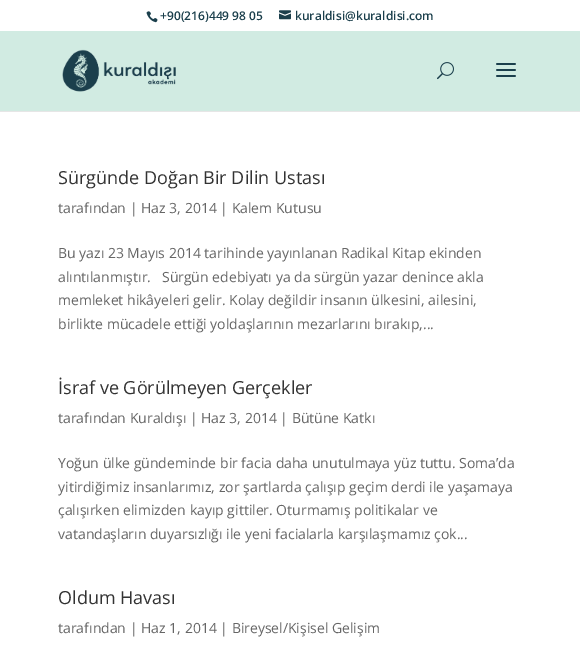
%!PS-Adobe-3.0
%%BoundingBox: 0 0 580 652
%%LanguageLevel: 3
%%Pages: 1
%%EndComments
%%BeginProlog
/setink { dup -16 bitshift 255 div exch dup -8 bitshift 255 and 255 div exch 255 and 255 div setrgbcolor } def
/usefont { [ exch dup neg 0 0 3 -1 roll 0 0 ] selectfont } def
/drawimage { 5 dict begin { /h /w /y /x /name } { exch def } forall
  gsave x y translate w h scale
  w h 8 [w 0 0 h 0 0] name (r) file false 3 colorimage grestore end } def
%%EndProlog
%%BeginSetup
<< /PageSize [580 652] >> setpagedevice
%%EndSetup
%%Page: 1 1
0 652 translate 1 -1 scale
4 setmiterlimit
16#FFFFFF setink
0 0 580 652 rectfill
(img1.raw) 146 11 12 12 drawimage
/OpenSans-SemiBold 12 usefont
16#1B3F4C setink
160 20 moveto (+90\(216\)449 98 05) show
(img2.raw) 279 10 12 10 drawimage
295 20 moveto (kuraldisi@kuraldisi.com) show
16#E6E6E6 setink
0 111 580 1 rectfill
16#D1EBE2 setink
0 31 580 80 rectfill
(img3.raw) 62 49 114 43 drawimage
(img4.raw) 437 62 17 18 drawimage
(img5.raw) 496 63 20 14 drawimage
/OpenSans-Regular 18 usefont
16#333333 setink
58 184 moveto (Sürgünde Doğan Bir Dilin Ustası) show
/OpenSans-Regular 14 usefont
16#666666 setink
[
    [(tarafından | Haz 3, 2014 | Kalem Kutusu) 58 213]
    [(Bu yazı 23 Mayıs 2014 tarihinde yayınlanan Radikal Kitap ekinden) 58 258]
    [(alıntılanmıştır.   Sürgün edebiyatı ya da sürgün yazar denince akla) 58 282]
    [(memleket hikâyeleri gelir. Kolay değildir insanın ülkesini, ailesini,) 58 305]
    [(birlikte mücadele ettiği yoldaşlarının mezarlarını bırakıp,...) 58 329]
] { aload pop moveto show } forall
/OpenSans-Regular 18 usefont
16#333333 setink
58 394 moveto (İsraf ve Görülmeyen Gerçekler) show
/OpenSans-Regular 14 usefont
16#666666 setink
[
    [(tarafından Kuraldışı | Haz 3, 2014 | Bütüne Katkı) 58 423]
    [(Yoğun ülke gündeminde bir facia daha unutulmaya yüz tuttu. Soma’da) 58 468]
    [(yitirdiğimiz insanlarımız, zor şartlarda çalışıp geçim derdi ile yaşamaya) 58 492]
    [(çalışırken elimizden kayıp gittiler. Oturmamış politikalar ve) 58 515]
    [(vatandaşların duyarsızlığı ile yeni facialarla karşılaşmamız çok...) 58 539]
] { aload pop moveto show } forall
/OpenSans-Regular 18 usefont
16#333333 setink
58 604 moveto (Oldum Havası) show
/OpenSans-Regular 14 usefont
16#666666 setink
58 633 moveto (tarafından | Haz 1, 2014 | Bireysel/Kişisel Gelişim) show
showpage
%%EOF
